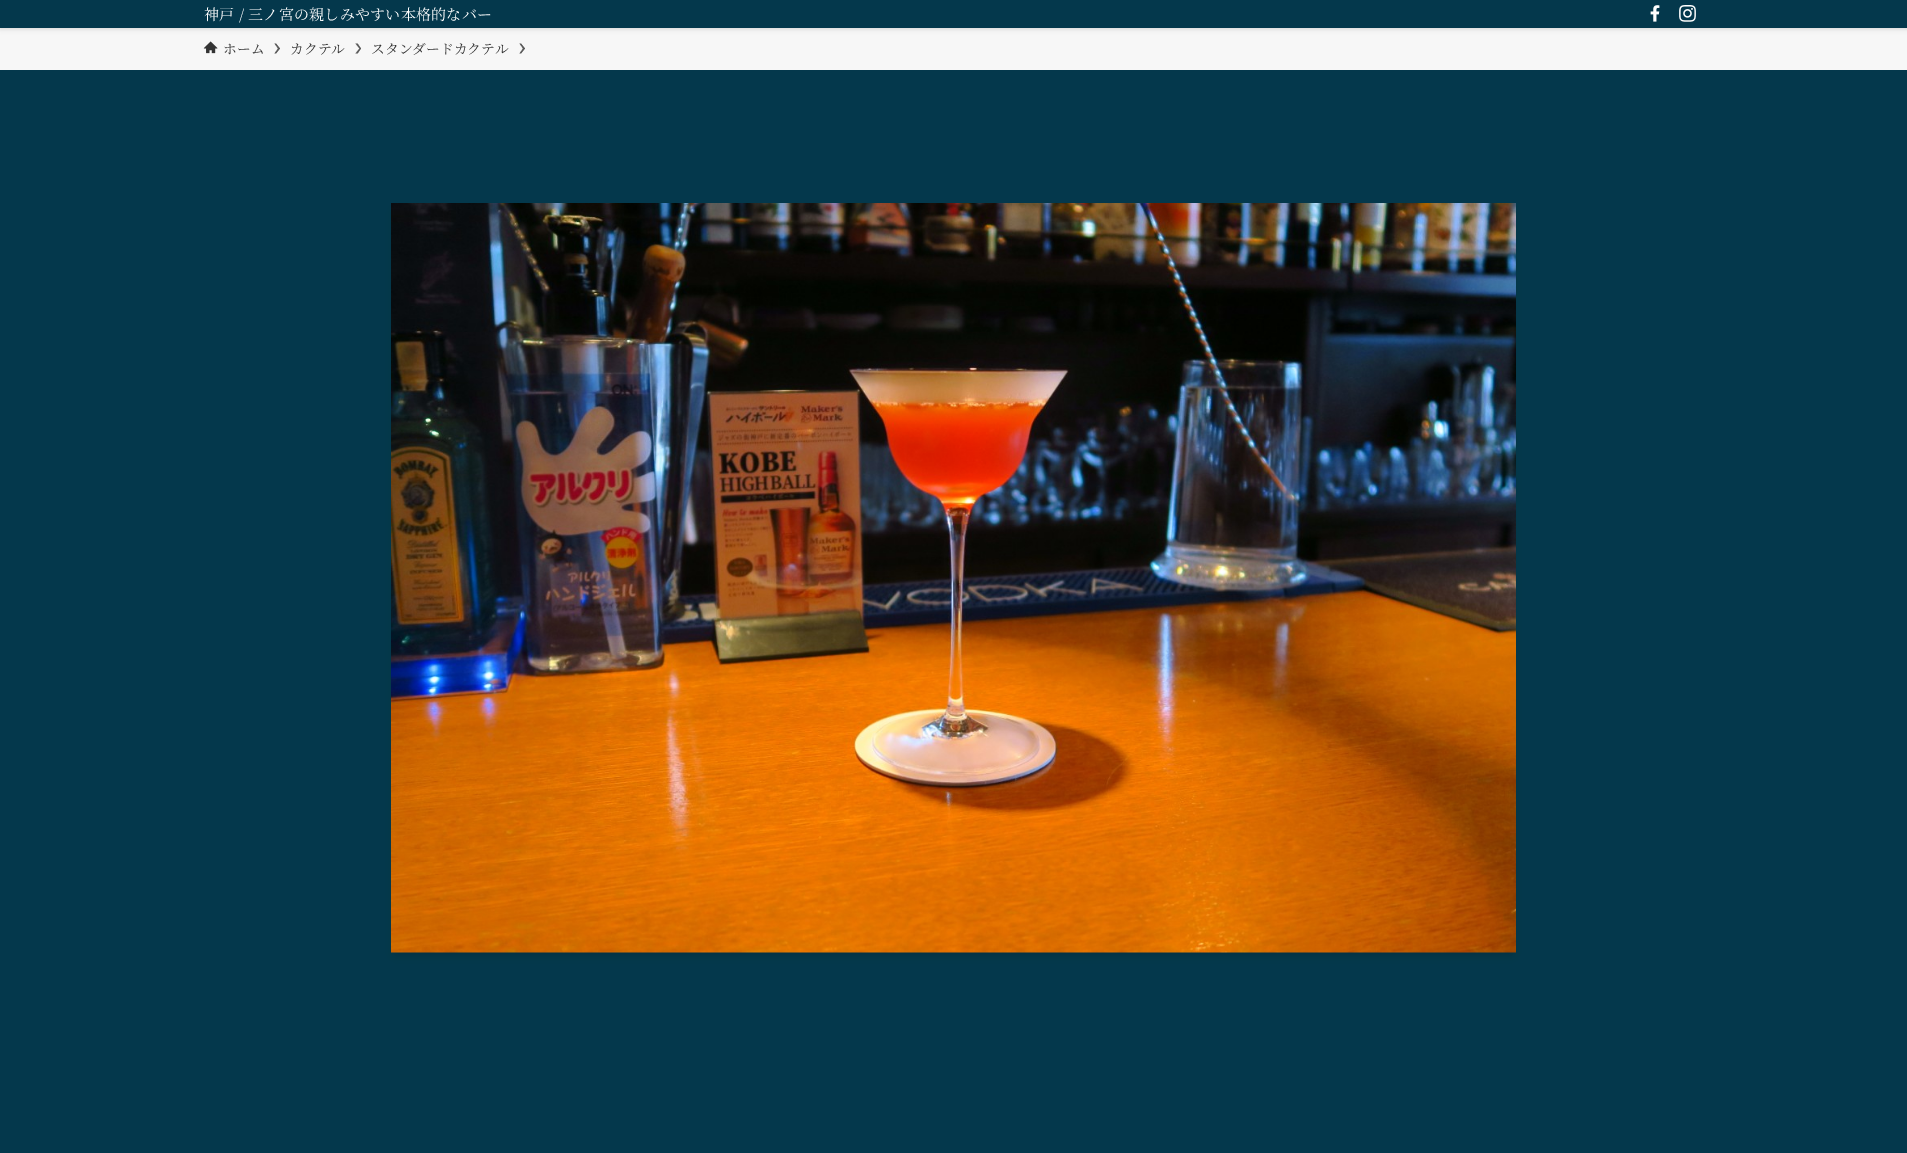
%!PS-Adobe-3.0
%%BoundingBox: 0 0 1907 1153
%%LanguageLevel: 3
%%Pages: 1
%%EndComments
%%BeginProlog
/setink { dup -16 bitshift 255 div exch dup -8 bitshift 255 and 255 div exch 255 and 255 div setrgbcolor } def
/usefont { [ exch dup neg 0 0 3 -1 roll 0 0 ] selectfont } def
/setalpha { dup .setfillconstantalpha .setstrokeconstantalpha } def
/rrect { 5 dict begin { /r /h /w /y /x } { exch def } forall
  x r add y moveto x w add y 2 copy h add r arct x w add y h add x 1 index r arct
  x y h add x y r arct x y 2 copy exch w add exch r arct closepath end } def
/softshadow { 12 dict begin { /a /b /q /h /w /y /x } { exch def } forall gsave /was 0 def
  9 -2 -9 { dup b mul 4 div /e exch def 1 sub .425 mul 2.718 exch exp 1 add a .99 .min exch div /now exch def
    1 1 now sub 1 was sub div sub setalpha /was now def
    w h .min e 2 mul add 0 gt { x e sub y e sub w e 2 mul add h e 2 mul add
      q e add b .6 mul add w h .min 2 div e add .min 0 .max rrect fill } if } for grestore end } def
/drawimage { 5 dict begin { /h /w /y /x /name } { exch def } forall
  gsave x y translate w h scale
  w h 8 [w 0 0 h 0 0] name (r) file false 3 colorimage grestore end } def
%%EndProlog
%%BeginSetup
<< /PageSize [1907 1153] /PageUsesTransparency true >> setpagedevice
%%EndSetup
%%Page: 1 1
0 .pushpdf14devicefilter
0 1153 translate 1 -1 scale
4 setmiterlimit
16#04384C setink
0 0 1907 1153 rectfill
16#F7F7F7 setink
0 28 1907 42 rectfill
16#000000 setink
0 1 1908 28 0 2.5 0.12 softshadow
16#04384C setink
0 0 1907 28 rectfill
/NotoSerifJP-Regular 15 usefont
16#FFFFFF setink
204 20 moveto 0.25 0 (神戸 / 三ノ宮の親しみやすい本格的なバー) ashow
(img1.raw) 1650 5 10 17 drawimage
(img2.raw) 1679 5 17 17 drawimage
(img3.raw) 203 41 15 13 drawimage
/NotoSerifJP-Regular 13.75 usefont
16#333333 setink
223 54 moveto (ホーム) show
16#5A5A5A setink
276 43.5 moveto 274.5 43.5 lineto 278 48.5 lineto 274.5 53.5 lineto 276 53.5 lineto 280 48.5 lineto closepath fill
16#333333 setink
290 54 moveto (カクテル) show
16#5A5A5A setink
357.5 43.5 moveto 355.5 43.5 lineto 359.5 48.5 lineto 355.5 53.5 lineto 357.5 53.5 lineto 361 48.5 lineto closepath fill
16#333333 setink
371 54 moveto (スタンダードカクテル) show
16#5A5A5A setink
521 43.5 moveto 519.5 43.5 lineto 523 48.5 lineto 519.5 53.5 lineto 521 53.5 lineto 525 48.5 lineto closepath fill
16#000000 setink
396 213 1115 740 0 5 0.2 softshadow
(img4.raw) 391 203 1125 750 drawimage
.poppdf14devicefilter showpage
%%EOF
